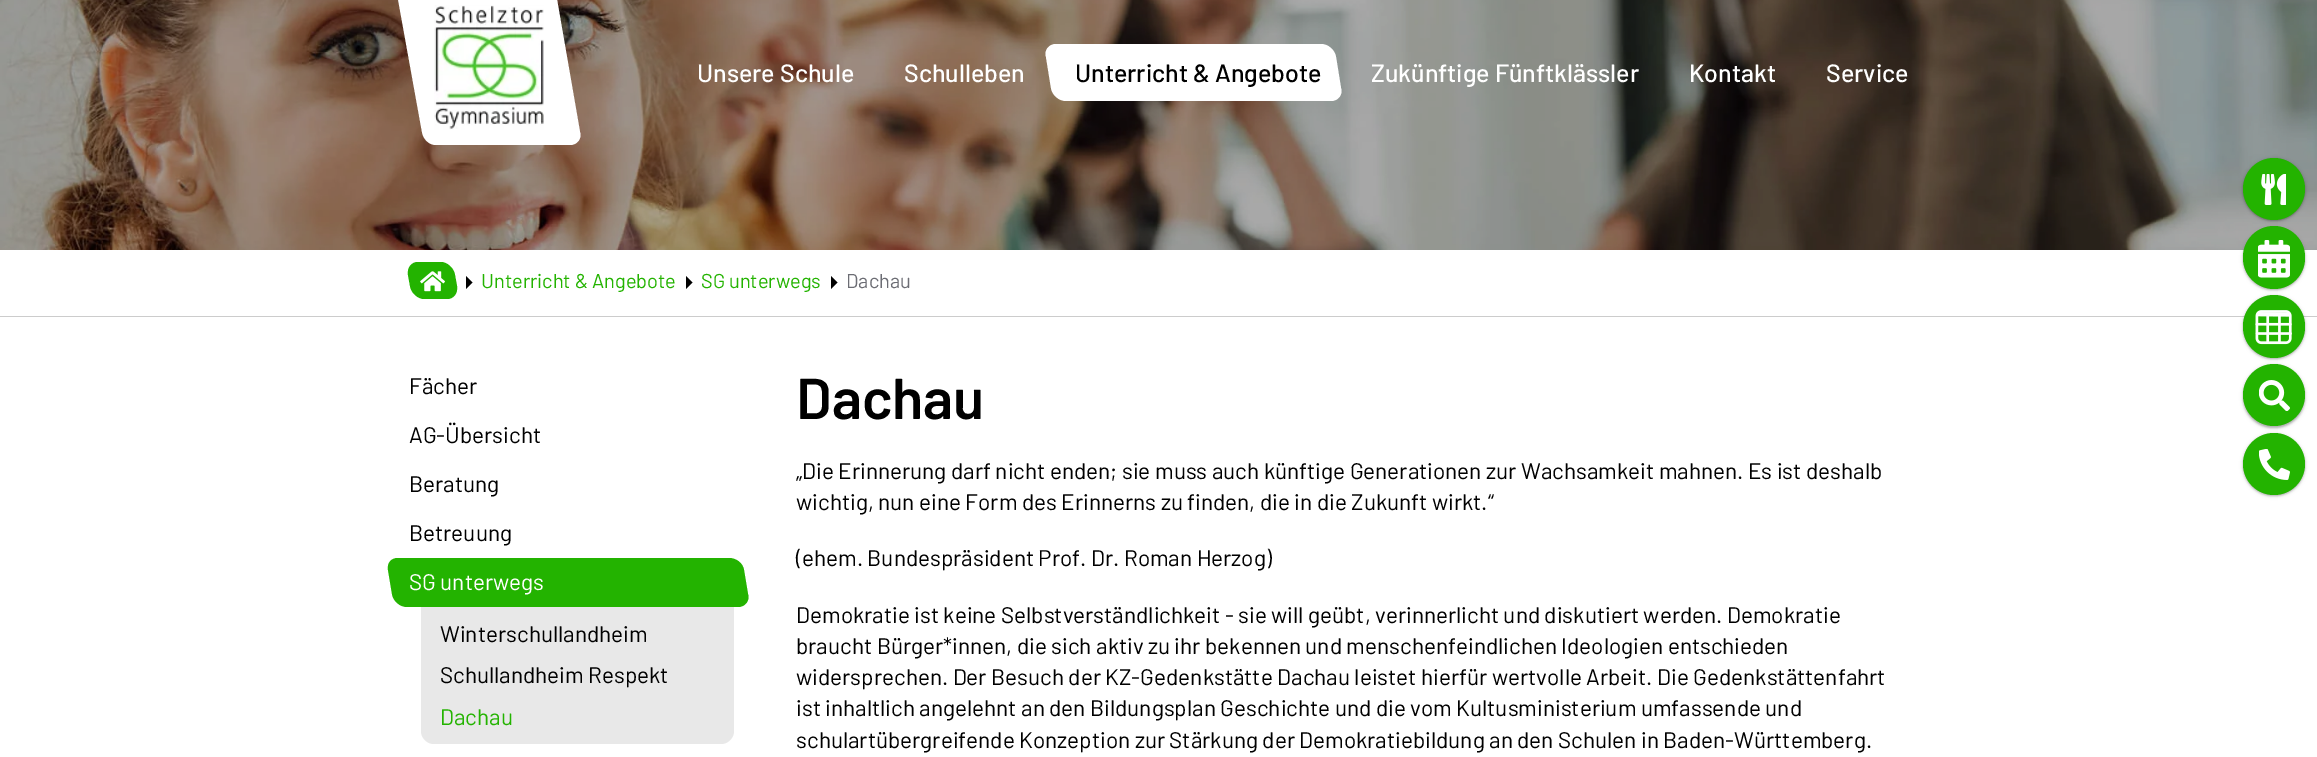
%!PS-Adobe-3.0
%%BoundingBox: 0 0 2317 757
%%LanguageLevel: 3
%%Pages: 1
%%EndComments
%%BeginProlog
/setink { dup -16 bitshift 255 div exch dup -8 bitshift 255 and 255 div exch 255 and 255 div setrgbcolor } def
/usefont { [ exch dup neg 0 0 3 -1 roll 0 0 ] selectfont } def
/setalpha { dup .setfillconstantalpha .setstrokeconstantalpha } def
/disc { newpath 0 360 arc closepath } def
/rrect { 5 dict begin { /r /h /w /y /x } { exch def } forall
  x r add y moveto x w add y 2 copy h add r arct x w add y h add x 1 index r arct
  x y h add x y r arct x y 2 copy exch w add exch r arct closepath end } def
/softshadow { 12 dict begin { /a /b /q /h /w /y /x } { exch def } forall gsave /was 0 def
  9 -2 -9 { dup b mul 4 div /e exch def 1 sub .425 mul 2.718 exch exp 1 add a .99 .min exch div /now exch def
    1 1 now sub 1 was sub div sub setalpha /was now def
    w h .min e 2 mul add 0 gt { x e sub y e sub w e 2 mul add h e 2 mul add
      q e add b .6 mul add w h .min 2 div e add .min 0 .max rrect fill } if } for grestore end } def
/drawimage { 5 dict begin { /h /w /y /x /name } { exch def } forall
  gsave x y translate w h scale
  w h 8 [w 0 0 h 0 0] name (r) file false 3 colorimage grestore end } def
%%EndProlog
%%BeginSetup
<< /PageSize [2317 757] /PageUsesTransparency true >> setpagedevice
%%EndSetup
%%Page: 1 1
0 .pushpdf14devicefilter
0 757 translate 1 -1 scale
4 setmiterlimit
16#FFFFFF setink
0 0 2317 757 rectfill
(img1.raw) 0 0 2317 250 drawimage
406 -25 moveto 540 -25 lineto 547 -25 553 -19 555 -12 curveto 580 132 lineto 582 139 577 145 570 145 curveto 436 145 lineto 429 145 423 139 422 132 curveto 396 -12 lineto 395 -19 399 -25 406 -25 curveto closepath fill
(img2.raw) 434 5 110 125 drawimage
/Barlow-Medium 25 usefont
697 82 moveto (Unsere Schule) show
904 82 moveto (Schulleben) show
1056 44 moveto 1321 44 lineto 1328 44 1335 50 1336 57 curveto 1341 88 lineto 1343 95 1338 101 1331 101 curveto 1066 101 lineto 1059 101 1052 95 1051 88 curveto 1046 57 lineto 1044 50 1049 44 1056 44 curveto closepath fill
16#000000 setink
1075 82 moveto (Unterricht & Angebote) show
16#FFFFFF setink
[
    [(Zukünftige Fünftklässler) 1371 82]
    [(Kontakt) 1689 82]
    [(Service) 1826 82]
] { aload pop moveto show } forall
16#CCCCCC setink
0 316 2317 1 rectfill
16#23B300 setink
418 262 moveto 441 262 lineto 447 262 454 268 455 275 curveto 457 286 lineto 458 293 454 299 447 299 curveto 424 299 lineto 418 299 411 293 410 286 curveto 408 275 lineto 407 268 411 262 418 262 curveto closepath fill
(img3.raw) 420 271 25 21 drawimage
16#000000 setink
466 276 moveto 472.5 282.5 lineto 466 289 lineto closepath fill
/Barlow-Regular 20 usefont
16#23B300 setink
481 288 moveto (Unterricht & Angebote) show
16#000000 setink
686 276 moveto 692.5 282.5 lineto 686 289 lineto closepath fill
16#23B300 setink
701 288 moveto (SG unterwegs) show
16#000000 setink
831 276 moveto 837.5 282.5 lineto 831 289 lineto closepath fill
16#6C6D74 setink
846 288 moveto (Dachau) show
16#000000 setink
2243 159 62 62 31 1 0.24 softshadow
2243 159 62 62 31 2 0.12 softshadow
16#23B300 setink
2274 189 31 disc fill
(img4.raw) 2261 174 25 31 drawimage
16#000000 setink
2243 228 62 62 31 1 0.24 softshadow
2243 228 62 62 31 2 0.12 softshadow
16#23B300 setink
2243 226 62 63 31 rrect fill
(img5.raw) 2258 240 32 38 drawimage
16#000000 setink
2243 296 62 63 31 1 0.24 softshadow
2243 296 62 63 31 2 0.12 softshadow
16#23B300 setink
2243 295 62 63 31 rrect fill
(img6.raw) 2255 310 37 35 drawimage
16#000000 setink
2243 365 62 63 31 1 0.24 softshadow
2243 365 62 63 31 2 0.12 softshadow
16#23B300 setink
2274 395 31 disc fill
(img7.raw) 2259 380 31 31 drawimage
16#000000 setink
2243 434 62 62 31 1 0.24 softshadow
2243 434 62 62 31 2 0.12 softshadow
16#23B300 setink
2274 464 31 disc fill
(img8.raw) 2259 449 31 31 drawimage
/Barlow-Regular 22.5 usefont
16#000000 setink
[
    [(Fächer) 409 394]
    [(AG-Übersicht) 409 443]
    [(Beratung) 409 492]
    [(Betreuung) 409 541]
] { aload pop moveto show } forall
16#E8E8E8 setink
421 606 moveto 734 606 lineto 734 731 lineto 734 738 728 744 721 744 curveto 434 744 lineto 427 744 421 738 421 731 curveto closepath fill
16#23B300 setink
398 558 moveto 729 558 lineto 736 558 743 563 744 570 curveto 748 594 lineto 750 601 745 607 738 607 curveto 407 607 lineto 400 607 393 601 392 594 curveto 388 570 lineto 387 563 391 558 398 558 curveto closepath fill
16#FFFFFF setink
409 590 moveto (SG unterwegs) show
16#000000 setink
440 642 moveto (Winterschullandheim) show
440 683 moveto (Schullandheim Respekt) show
16#23B300 setink
440 725 moveto (Dachau) show
/Barlow-SemiBold 57.5 usefont
16#000000 setink
796 419 moveto (Dachau) show
/Barlow-Regular 22.5 usefont
[
    [(„Die Erinnerung darf nicht enden; sie muss auch künftige Generationen zur Wachsamkeit mahnen. Es ist deshalb) 796 479]
    [(wichtig, nun eine Form des Erinnerns zu finden, die in die Zukunft wirkt.“) 796 510]
    [(\(ehem. Bundespräsident Prof. Dr. Roman Herzog\)) 796 566]
    [(Demokratie ist keine Selbstverständlichkeit - sie will geübt, verinnerlicht und diskutiert werden. Demokratie) 796 623]
    [(braucht Bürger*innen, die sich aktiv zu ihr bekennen und menschenfeindlichen Ideologien entschieden) 796 654]
    [(widersprechen. Der Besuch der KZ-Gedenkstätte Dachau leistet hierfür wertvolle Arbeit. Die Gedenkstättenfahrt) 796 685]
    [(ist inhaltlich angelehnt an den Bildungsplan Geschichte und die vom Kultusministerium umfassende und) 796 716]
    [(schulartübergreifende Konzeption zur Stärkung der Demokratiebildung an den Schulen in Baden-Württemberg.) 796 748]
] { aload pop moveto show } forall
.poppdf14devicefilter showpage
%%EOF
